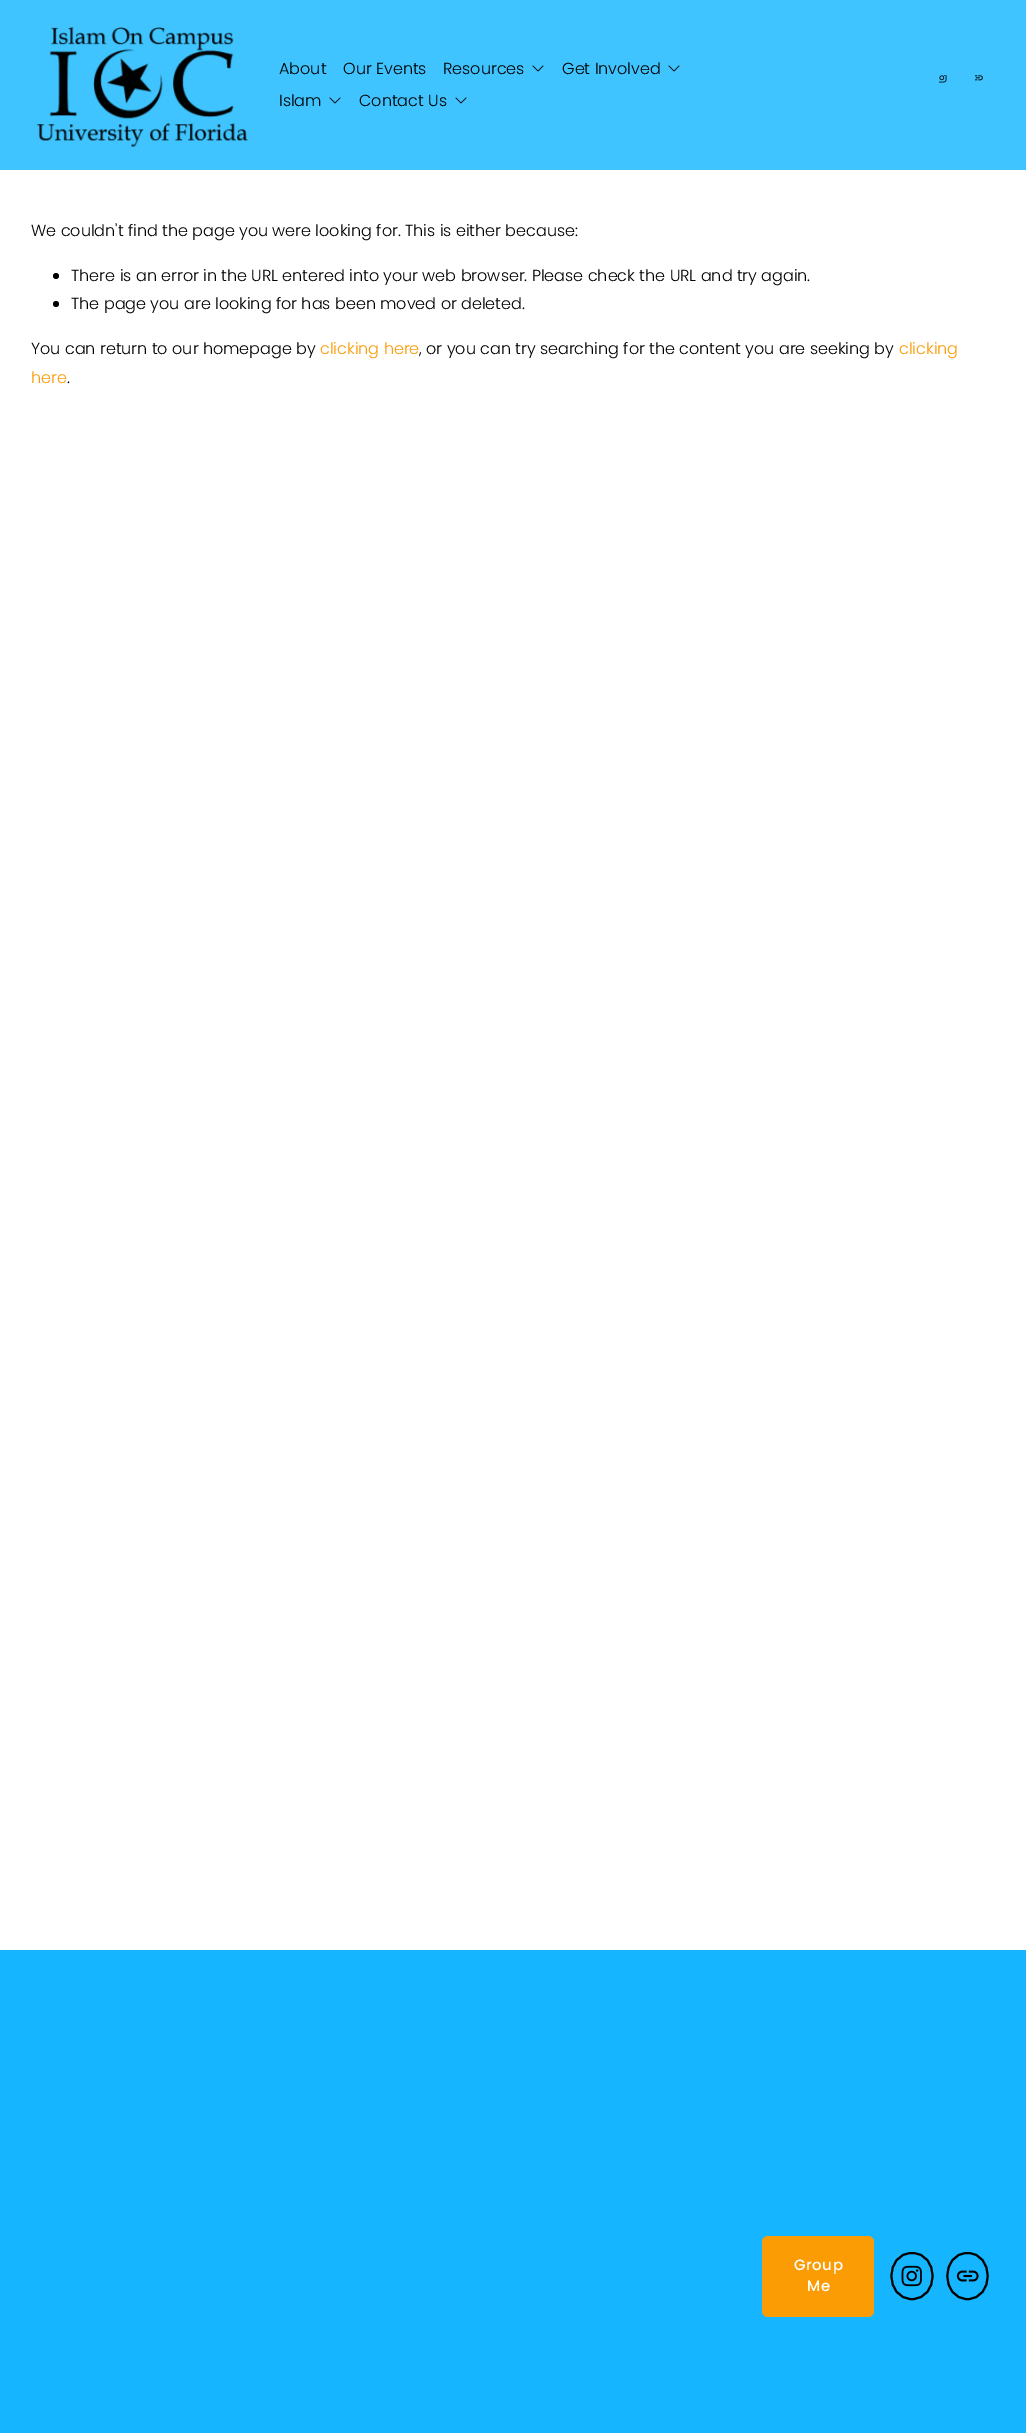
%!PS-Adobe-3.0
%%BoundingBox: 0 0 1026 2433
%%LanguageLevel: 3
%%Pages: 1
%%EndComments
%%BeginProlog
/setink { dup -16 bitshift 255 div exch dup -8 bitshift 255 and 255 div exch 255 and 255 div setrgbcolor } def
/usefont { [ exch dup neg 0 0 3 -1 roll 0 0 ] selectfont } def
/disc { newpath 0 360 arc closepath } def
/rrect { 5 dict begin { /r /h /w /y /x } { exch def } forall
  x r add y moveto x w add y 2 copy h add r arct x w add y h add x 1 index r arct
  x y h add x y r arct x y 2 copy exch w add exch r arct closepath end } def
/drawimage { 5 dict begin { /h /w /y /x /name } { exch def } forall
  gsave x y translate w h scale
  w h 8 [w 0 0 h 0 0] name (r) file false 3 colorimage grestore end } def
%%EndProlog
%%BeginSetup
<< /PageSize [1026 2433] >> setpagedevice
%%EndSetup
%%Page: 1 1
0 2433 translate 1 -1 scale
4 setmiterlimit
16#FFFFFF setink
0 0 1026 2433 rectfill
16#3FC4FF setink
0 0 1026 170 rectfill
(img1.raw) 37 27 211 120 drawimage
/Poppins-Light 16 usefont
16#000000 setink
[
    [(About) 279 74]
    [(Our Events) 343 74]
    [(Resources) 443 74]
] { aload pop moveto show } forall
0.7 setlinewidth
2 setlinecap
543 66 moveto 538 71 lineto 533 66 lineto stroke
562 74 moveto (Get Involved) show
679 66 moveto 674 71 lineto 669 66 lineto stroke
279 106 moveto (Islam) show
340 98 moveto 335 103 lineto 330 98 lineto stroke
359 106 moveto (Contact Us) show
466 98 moveto 461 103 lineto 456 98 lineto stroke
(img2.raw) 939 75 8 8 drawimage
(img3.raw) 975 75 8 6 drawimage
31 236 moveto (We couldn't find the page you were looking for. This is either because:) show
56 276 3 disc fill
71 281 moveto (There is an error in the URL entered into your web browser. Please check the URL and try again.) show
56 304 3 disc fill
71 309 moveto (The page you are looking for has been moved or deleted.) show
31 354 moveto (You can return to our homepage by) show
16#FC9C05 setink
320 354 moveto (clicking here) show
16#000000 setink
419 354 moveto (, or you can try searching for the content you are seeking by) show
16#FC9C05 setink
899 354 moveto (clicking) show
31 383 moveto (here) show
16#000000 setink
67 383 moveto (.) show
16#15B6FF setink
0 1950 1026 483 rectfill
16#FC9C05 setink
762 2236 112 81 6 rrect fill
/Poppins-Medium 15 usefont
16#FFFFFF setink
794 2270 moveto 0.5 0 (Group) ashow
807 2291 moveto 0.5 0 (Me) ashow
16#000000 setink
2 setlinewidth
0 setlinecap
912 2253 moveto 939.5 2253 939.5 2299 912 2299 curveto 884.5 2299 884.5 2253 912 2253 curveto closepath stroke
(img4.raw) 901 2265 21 22 drawimage
967.5 2253 moveto 994.5 2253 994.5 2299 967.5 2299 curveto 940.5 2299 940.5 2253 967.5 2253 curveto closepath stroke
(img5.raw) 956 2270 23 12 drawimage
showpage
%%EOF
